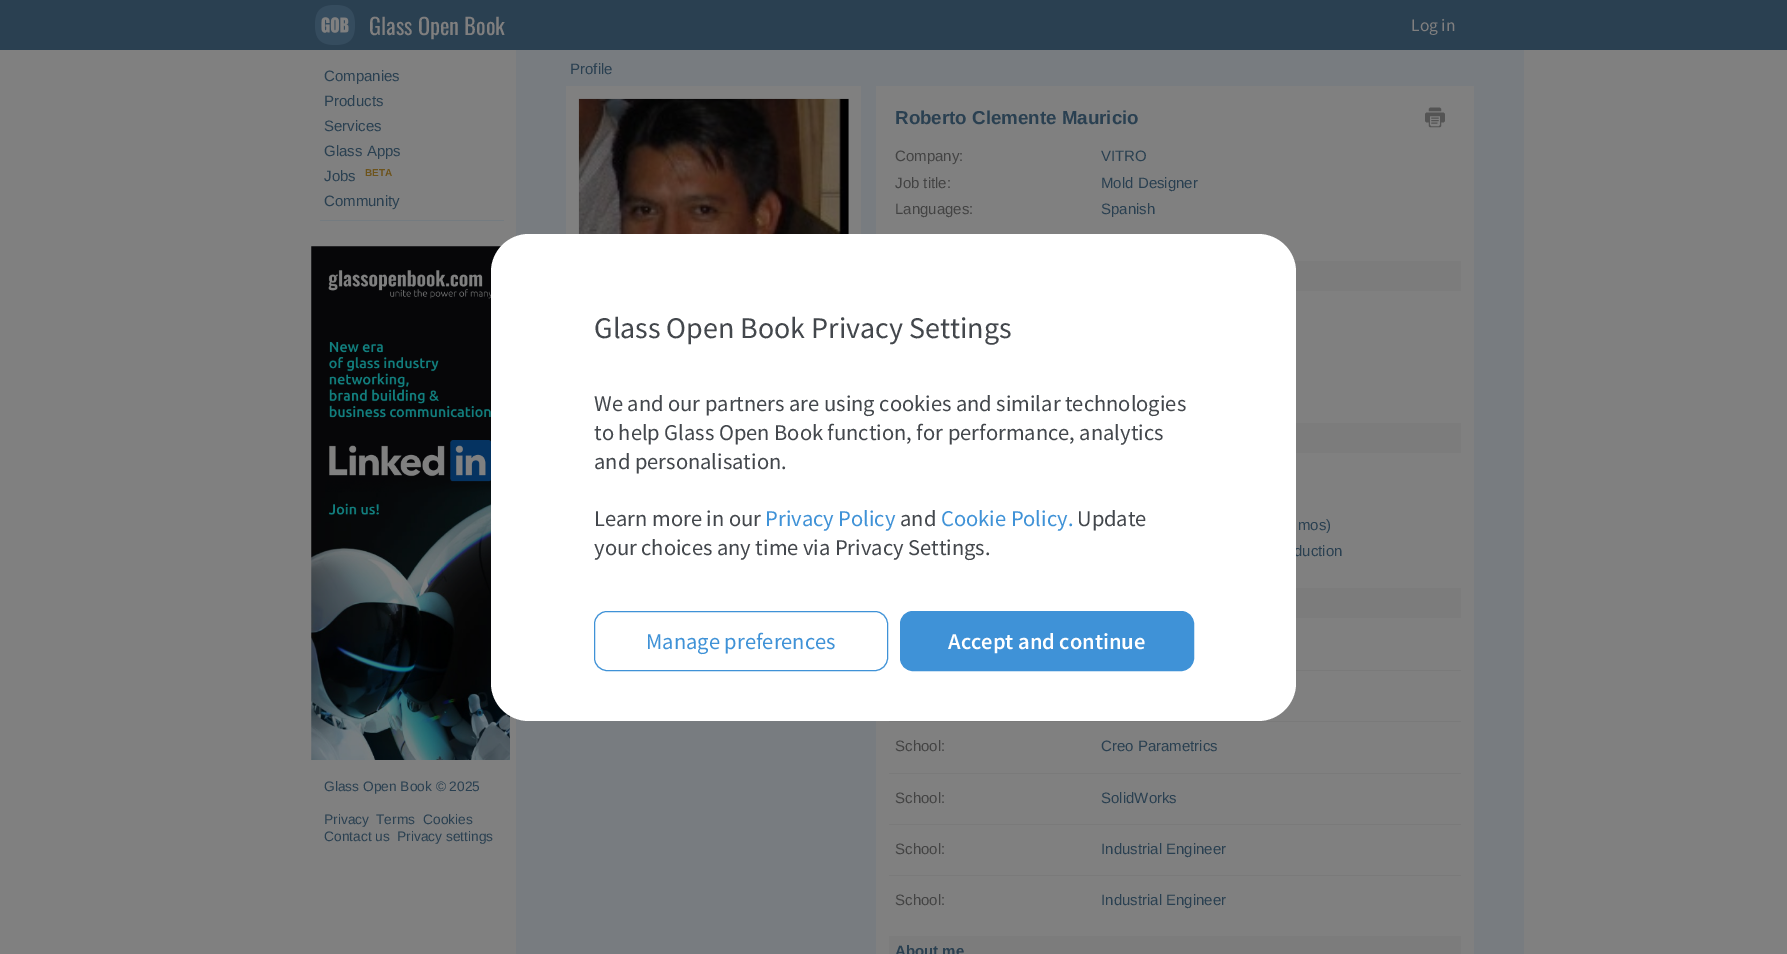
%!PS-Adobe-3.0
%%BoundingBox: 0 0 1787 954
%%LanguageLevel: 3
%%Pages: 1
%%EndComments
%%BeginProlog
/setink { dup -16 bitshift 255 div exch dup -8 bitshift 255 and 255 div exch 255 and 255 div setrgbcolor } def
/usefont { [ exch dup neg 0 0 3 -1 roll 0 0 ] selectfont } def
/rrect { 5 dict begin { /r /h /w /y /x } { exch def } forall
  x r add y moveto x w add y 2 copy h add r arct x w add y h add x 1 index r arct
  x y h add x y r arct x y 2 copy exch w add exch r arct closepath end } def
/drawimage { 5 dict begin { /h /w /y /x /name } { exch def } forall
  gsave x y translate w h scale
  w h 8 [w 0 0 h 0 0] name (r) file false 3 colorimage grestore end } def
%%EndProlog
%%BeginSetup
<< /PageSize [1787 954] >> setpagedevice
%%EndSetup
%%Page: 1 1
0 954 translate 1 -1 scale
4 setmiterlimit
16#808080 setink
0 0 1787 954 rectfill
16#2A4051 setink
0 0 1787 50 rectfill
(img1.raw) 315 5 40 40 drawimage
/Oswald-Regular 22.5 usefont
16#807F7F setink
369 35 moveto (Glass Open Book) show
/SourceSansPro-Regular 17.5 usefont
1411 31 moveto (Log in) show
/LiberationSans-Regular 15 usefont
16#2A4051 setink
[
    [(Companies) 324 81]
    [(Products) 324 106]
    [(Services) 324 131]
    [(Glass Apps) 324 156]
    [(Jobs) 324 181]
] { aload pop moveto show } forall
/LiberationSans-Bold 10 usefont
16#6D531B setink
365 176 moveto (BETA) show
/LiberationSans-Regular 15 usefont
16#2A4051 setink
324 206 moveto (Community) show
16#747B80 setink
320 220 184 1 rectfill
(img2.raw) 311 246 199 514 drawimage
/LiberationSans-Regular 13.75 usefont
16#2A4051 setink
[
    [(Glass Open Book © 2025) 324 791]
    [(Privacy) 324 824]
    [(Terms) 376 824]
    [(Cookies) 423 824]
    [(Contact us) 324 841]
    [(Privacy settings) 397 841]
] { aload pop moveto show } forall
16#787C80 setink
516 50 1008 904 rectfill
/LiberationSans-Regular 15 usefont
16#2A4051 setink
570 74 moveto (Profile) show
16#808080 setink
566 86 295 148 rectfill
(img3.raw) 578 98 271 136 drawimage
876 86 598 868 rectfill
/LiberationSans-Bold 18.75 usefont
16#2A4051 setink
895 124 moveto (Roberto Clemente Mauricio) show
(img4.raw) 1425 107 20 21 drawimage
/LiberationSans-Regular 15 usefont
16#434343 setink
895 161 moveto (Company:) show
16#2A4051 setink
1101 161 moveto (VITRO) show
16#434343 setink
895 188 moveto (Job title:) show
16#2A4051 setink
1101 188 moveto (Mold Designer) show
16#434343 setink
895 214 moveto (Languages:) show
16#2A4051 setink
1101 214 moveto (Spanish) show
16#7C7C7C setink
1294 261 167 30 rectfill
1296 423 165 30 rectfill
16#2A4051 setink
1298 530 moveto (mos\)) show
1294 556 moveto (duction) show
[
    [1296 588 165 30 16#7C7C7C]
    [1296 670 165 1 16#7A7A7A]
    [889 721 572 1 16#7A7A7A]
    [889 773 572 1 16#7A7A7A]
] { aload pop setink rectfill } forall
16#434343 setink
895 751 moveto (School:) show
16#2A4051 setink
1101 751 moveto (Creo Parametrics) show
16#7A7A7A setink
889 824 572 1 rectfill
16#434343 setink
895 803 moveto (School:) show
16#2A4051 setink
1101 803 moveto (SolidWorks) show
16#7A7A7A setink
889 875 572 1 rectfill
16#434343 setink
895 854 moveto (School:) show
16#2A4051 setink
1101 854 moveto (Industrial Engineer) show
16#434343 setink
895 905 moveto (School:) show
16#2A4051 setink
1101 905 moveto (Industrial Engineer) show
16#7C7C7C setink
889 936 572 18 rectfill
/LiberationSans-Bold 15 usefont
16#2A4051 setink
895 956 moveto (About me) show
16#FFFFFF setink
491 234 805 487 38 rrect fill
/SourceSansPro-Regular 30 usefont
16#43474C setink
594 338 moveto (Glass Open Book Privacy Settings) show
/SourceSansPro-Regular 22.5 usefont
[
    [(We and our partners are using cookies and similar technologies) 594 411]
    [(to help Glass Open Book function, for performance, analytics) 594 440]
    [(and personalisation.) 594 469]
    [(Learn more in our) 594 526]
] { aload pop moveto show } forall
16#3F92D7 setink
765 526 moveto (Privacy Policy) show
16#43474C setink
900 526 moveto (and) show
16#3F92D7 setink
941 526 moveto (Cookie Policy.) show
16#43474C setink
1077 526 moveto (Update) show
594 555 moveto (your choices any time via Privacy Settings.) show
16#3F92D7 setink
594.5 611.5 293 59 12.5 rrect stroke
646 649 moveto (Manage preferences) show
900.5 611.5 293 59 12.5 rrect gsave fill grestore
stroke
/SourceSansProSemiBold-SemiBold 22.5 usefont
16#FFFFFF setink
948 649 moveto (Accept and continue) show
showpage
%%EOF
